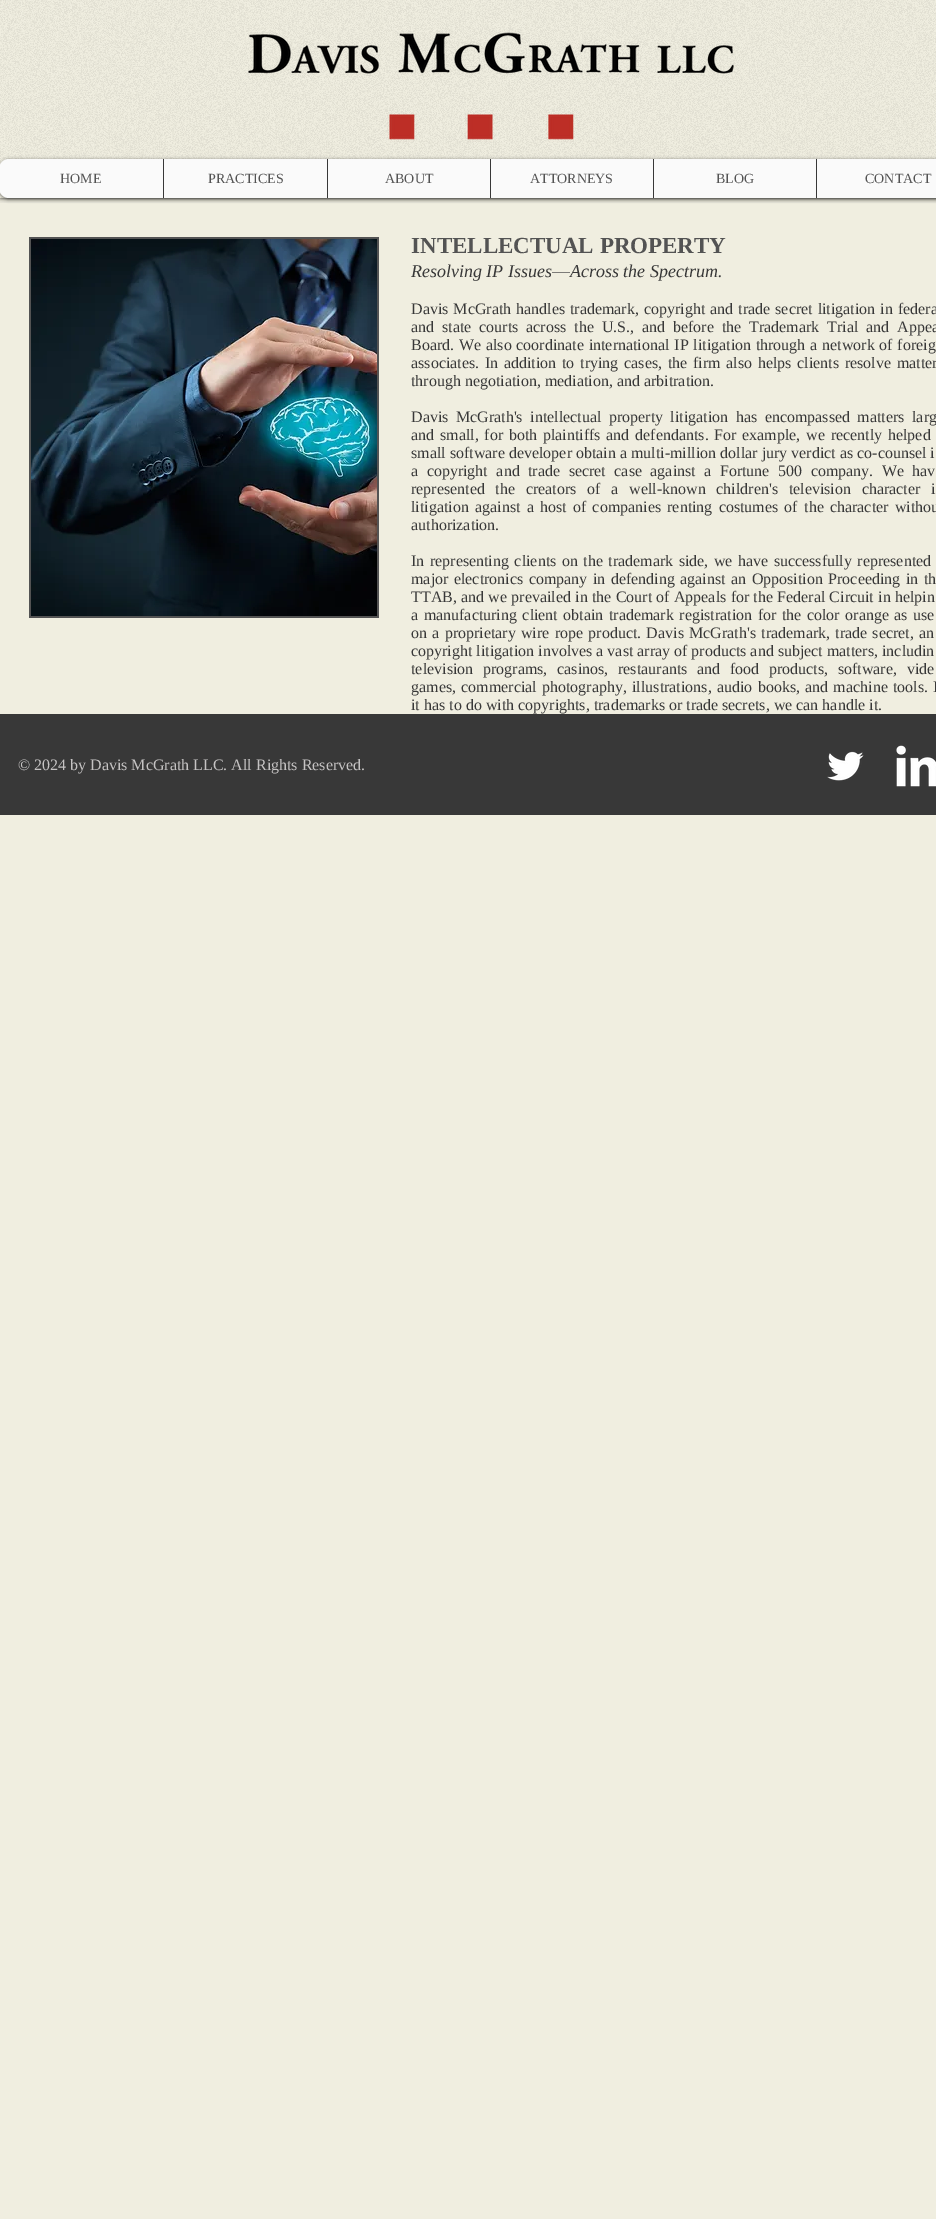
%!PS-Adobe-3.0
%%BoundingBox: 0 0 936 2219
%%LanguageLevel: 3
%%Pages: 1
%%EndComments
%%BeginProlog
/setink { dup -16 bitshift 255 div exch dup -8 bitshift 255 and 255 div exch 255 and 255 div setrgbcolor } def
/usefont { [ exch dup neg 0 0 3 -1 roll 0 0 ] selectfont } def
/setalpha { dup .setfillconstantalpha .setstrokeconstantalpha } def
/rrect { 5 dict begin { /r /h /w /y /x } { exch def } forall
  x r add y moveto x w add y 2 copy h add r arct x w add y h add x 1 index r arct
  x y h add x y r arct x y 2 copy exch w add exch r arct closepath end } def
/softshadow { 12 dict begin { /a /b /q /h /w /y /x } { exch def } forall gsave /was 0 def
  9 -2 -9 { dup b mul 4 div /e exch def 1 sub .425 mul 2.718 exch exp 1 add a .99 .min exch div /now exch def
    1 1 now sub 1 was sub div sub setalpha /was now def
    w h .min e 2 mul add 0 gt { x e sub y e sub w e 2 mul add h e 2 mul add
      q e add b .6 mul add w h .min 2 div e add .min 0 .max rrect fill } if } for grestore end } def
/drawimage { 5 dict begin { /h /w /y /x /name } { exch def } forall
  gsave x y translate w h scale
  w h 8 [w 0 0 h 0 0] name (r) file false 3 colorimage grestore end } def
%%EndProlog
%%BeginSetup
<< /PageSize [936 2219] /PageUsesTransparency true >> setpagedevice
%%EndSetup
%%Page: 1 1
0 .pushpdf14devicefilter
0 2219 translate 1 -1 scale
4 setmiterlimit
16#F0EEE0 setink
0 0 936 2219 rectfill
gsave
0 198 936 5 rectclip
16#000000 setink
0 0 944 198 0 2.5 0.7 softshadow
grestore
(img1.raw) 0 0 936 198 drawimage
(img2.raw) 248 31 487 111 drawimage
16#000000 setink
-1 160 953 39 10 2 0.6 softshadow
16#FAFAFA setink
-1 159 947 39 10 rrect fill
/LiberationSerif-Regular 14 usefont
16#535353 setink
60 183 moveto (HOME) show
16#383838 setink
163 159 1 39 rectfill
16#535353 setink
208 183 moveto (PRACTICES) show
16#383838 setink
327 159 1 39 rectfill
16#535353 setink
385 183 moveto (ABOUT) show
16#383838 setink
490 159 1 39 rectfill
16#535353 setink
530 183 moveto (ATTORNEYS) show
16#383838 setink
653 159 1 39 rectfill
16#535353 setink
716 183 moveto (BLOG) show
16#383838 setink
816 159 1 39 rectfill
16#535353 setink
865 183 moveto (CONTACT) show
29 237 350 381 rectfill
(img3.raw) 31 239 346 377 drawimage
/LiberationSerif-Bold 23 usefont
411 253 moveto (INTELLECTUAL PROPERTY) show
/LiberationSerif-Italic 18 usefont
16#383838 setink
411 277 moveto (Resolving IP Issues) show
/helvetica-Light 18 usefont
16#535353 setink
552 277 moveto (—) show
/LiberationSerif-Italic 18 usefont
16#383838 setink
570 277 moveto (Across the Spectrum.) show
/LiberationSerif-Regular 16 usefont
411 314 moveto 1 0 32 (Davis McGrath handles trademark, copyright and trade secret litigation in federa) widthshow
411 332 moveto 3.9 0 32 (and state courts across the U.S., and before the Trademark Trial and Appea) widthshow
411 350 moveto 0.75 0 32 (Board. We also coordinate international IP litigation through a network of foreig) widthshow
411 368 moveto 1.75 0 32 (associates. In addition to trying cases, the firm also helps clients resolve matter) widthshow
411 386 moveto (through negotiation, mediation, and arbitration.) show
411 422 moveto 3.5 0 32 (Davis McGrath's intellectual property litigation has encompassed matters larg) widthshow
411 440 moveto 1.75 0 32 (and small, for both plaintiffs and defendants. For example, we recently helped) widthshow
411 458 moveto (small software developer obtain a multi-million dollar jury verdict as co-counsel i) show
411 476 moveto 4.5 0 32 (a copyright and trade secret case against a Fortune 500 company. We hav) widthshow
411 494 moveto 6.75 0 32 (represented the creators of a well-known children's television character i) widthshow
411 512 moveto 2.25 0 32 (litigation against a host of companies renting costumes of the character withou) widthshow
411 530 moveto (authorization.) show
411 566 moveto 1.5 0 32 (In representing clients on the trademark side, we have successfully represented) widthshow
411 584 moveto 1.5 0 32 (major electronics company in defending against an Opposition Proceeding in th) widthshow
411 602 moveto 0.25 0 32 (TTAB, and we prevailed in the Court of Appeals for the Federal Circuit in helpin) widthshow
411 620 moveto 1.5 0 32 (a manufacturing client obtain trademark registration for the color orange as use) widthshow
411 638 moveto 1.25 0 32 (on a proprietary wire rope product. Davis McGrath's trademark, trade secret, an) widthshow
411 656 moveto (copyright litigation involves a vast array of products and subject matters, includin) show
411 674 moveto 5.75 0 32 (television programs, casinos, restaurants and food products, software, vide) widthshow
411 692 moveto 1.25 0 32 (games, commercial photography, illustrations, audio books, and machine tools. I) widthshow
411 710 moveto (it has to do with copyrights, trademarks or trade secrets, we can handle it.) show
0 714 936 101 rectfill
16#C5C3C3 setink
18 770 moveto (© 2024 by Davis McGrath LLC. All Rights Reserved.) show
(img4.raw) 827 751 37 30 drawimage
(img5.raw) 896 745 40 42 drawimage
.poppdf14devicefilter showpage
%%EOF
